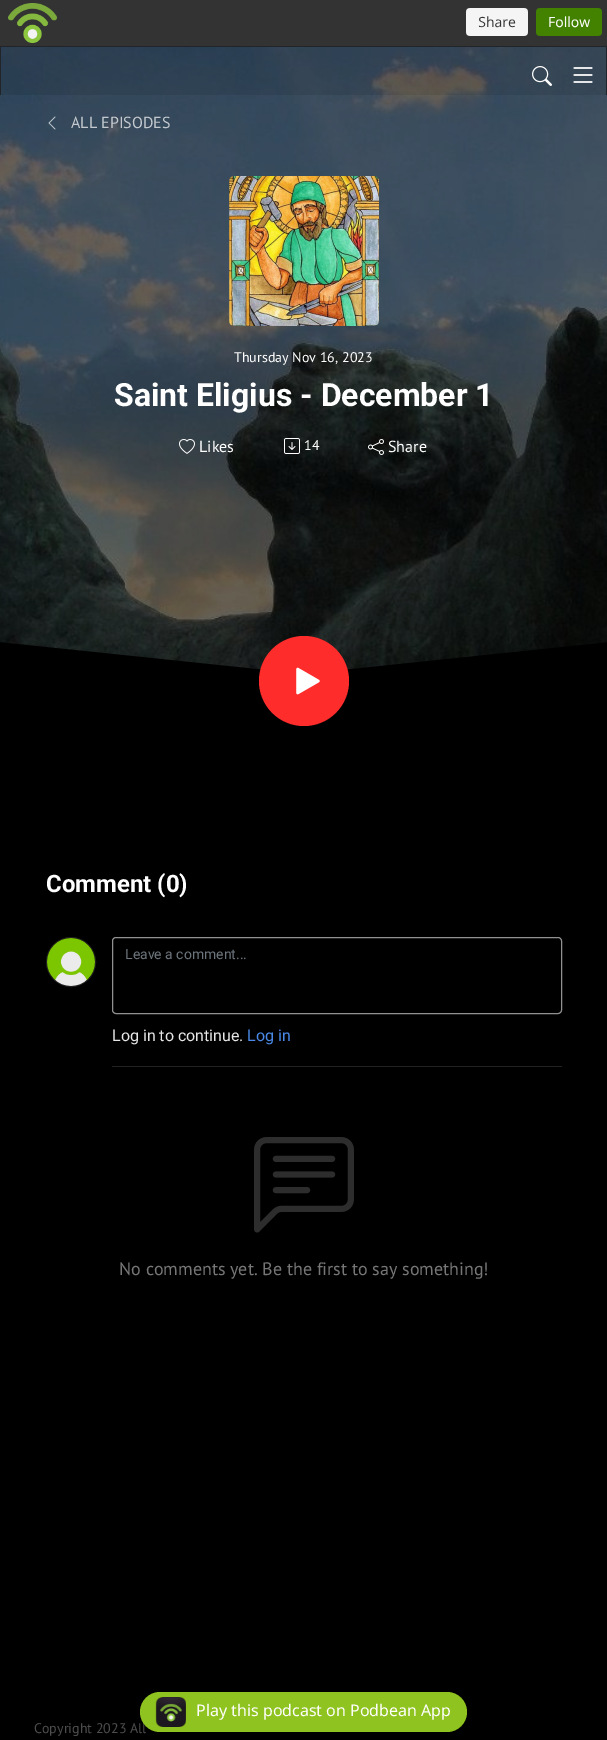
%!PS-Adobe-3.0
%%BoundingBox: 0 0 607 1740
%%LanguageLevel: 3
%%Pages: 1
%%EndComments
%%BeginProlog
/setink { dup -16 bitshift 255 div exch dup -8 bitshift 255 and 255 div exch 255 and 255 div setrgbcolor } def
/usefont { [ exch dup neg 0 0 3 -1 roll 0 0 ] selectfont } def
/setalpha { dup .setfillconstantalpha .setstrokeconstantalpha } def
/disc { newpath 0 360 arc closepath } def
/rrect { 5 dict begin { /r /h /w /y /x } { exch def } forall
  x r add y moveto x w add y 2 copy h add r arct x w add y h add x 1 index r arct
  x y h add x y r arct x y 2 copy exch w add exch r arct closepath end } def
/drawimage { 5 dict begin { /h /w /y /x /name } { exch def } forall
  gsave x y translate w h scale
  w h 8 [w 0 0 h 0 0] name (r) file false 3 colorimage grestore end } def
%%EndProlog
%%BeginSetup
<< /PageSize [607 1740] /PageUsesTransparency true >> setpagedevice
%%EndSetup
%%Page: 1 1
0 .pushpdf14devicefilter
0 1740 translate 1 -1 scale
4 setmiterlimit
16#000000 setink
0 0 607 1740 rectfill
16#333333 setink
0 0 607 46 rectfill
(img1.raw) 8 3 594 40 drawimage
(img4.raw) 0 47 607 623 drawimage
0.09 setalpha
[
    [1 47 605 48 16#000000]
] { aload pop setink rectfill } forall
1 setalpha
[
    [0 46 607 1 16#212529]
    [606 46 1 49 16#212529]
    [0 46 1 49 16#212529]
] { aload pop setink rectfill } forall
(img2.raw) 532 66 20 20 drawimage
(img3.raw) 573 67 20 16 drawimage
(img5.raw) 48 116 8 14 drawimage
/PTSans-Regular 16 usefont
16#C3C9CE setink
71 128 moveto (ALL EPISODES) show
(img6.raw) 229 176 150 150 drawimage
/PTSans-Regular 14 usefont
16#FFFFFF setink
234 362 moveto (Thursday Nov 16, 2023) show
/Roboto-Bold 32 usefont
114 406 moveto (Saint Eligius - December 1) show
(img7.raw) 179 439 16 15 drawimage
/PTSans-Regular 16 usefont
199 452 moveto (Likes) show
(img8.raw) 284 438 16 16 drawimage
/PTSans-Regular 14 usefont
304 450 moveto (14) show
(img9.raw) 368 439 16 16 drawimage
/PTSans-Regular 16 usefont
388 452 moveto (Share) show
16#000000 setink
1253 746 moveto -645 746 lineto -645 575 lineto 304 674 lineto 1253 575 lineto closepath fill
16#FF2C2C setink
304 681 45 disc fill
(img10.raw) 296 667 24 28 drawimage
/Roboto-Bold 24 usefont
16#FFFFFF setink
46 892 moveto (Comment \(0\)) show
16#202020 setink
71 962 24.5 disc stroke
(img11.raw) 47 938 48 48 drawimage
16#222222 setink
112 1066 450 1 rectfill
16#909090 setink
112.5 937.5 449 76 3.5 rrect stroke
/Roboto-Regular 14 usefont
16#6C757D setink
125 959 moveto (Leave a comment...) show
/Roboto-Regular 16 usefont
16#E6E6E6 setink
112 1041 moveto (Log in to continue.) show
16#4A89E6 setink
247 1041 moveto (Log in) show
(img12.raw) 254 1137 100 96 drawimage
/PTSans-Regular 18 usefont
16#767676 setink
119 1275 moveto (No comments yet. Be the first to say something!) show
/PTSans-Regular 14 usefont
16#4D4D4D setink
34 1733 moveto (Copyright 2023 All) show
16#8FC31F setink
140 1692 327 40 20 rrect fill
(img13.raw) 155 1697 31 30 drawimage
/NotoSans-Regular 16 usefont
16#FFFFFF setink
196 1716 moveto (Play this podcast on Podbean App) show
.poppdf14devicefilter showpage
%%EOF
